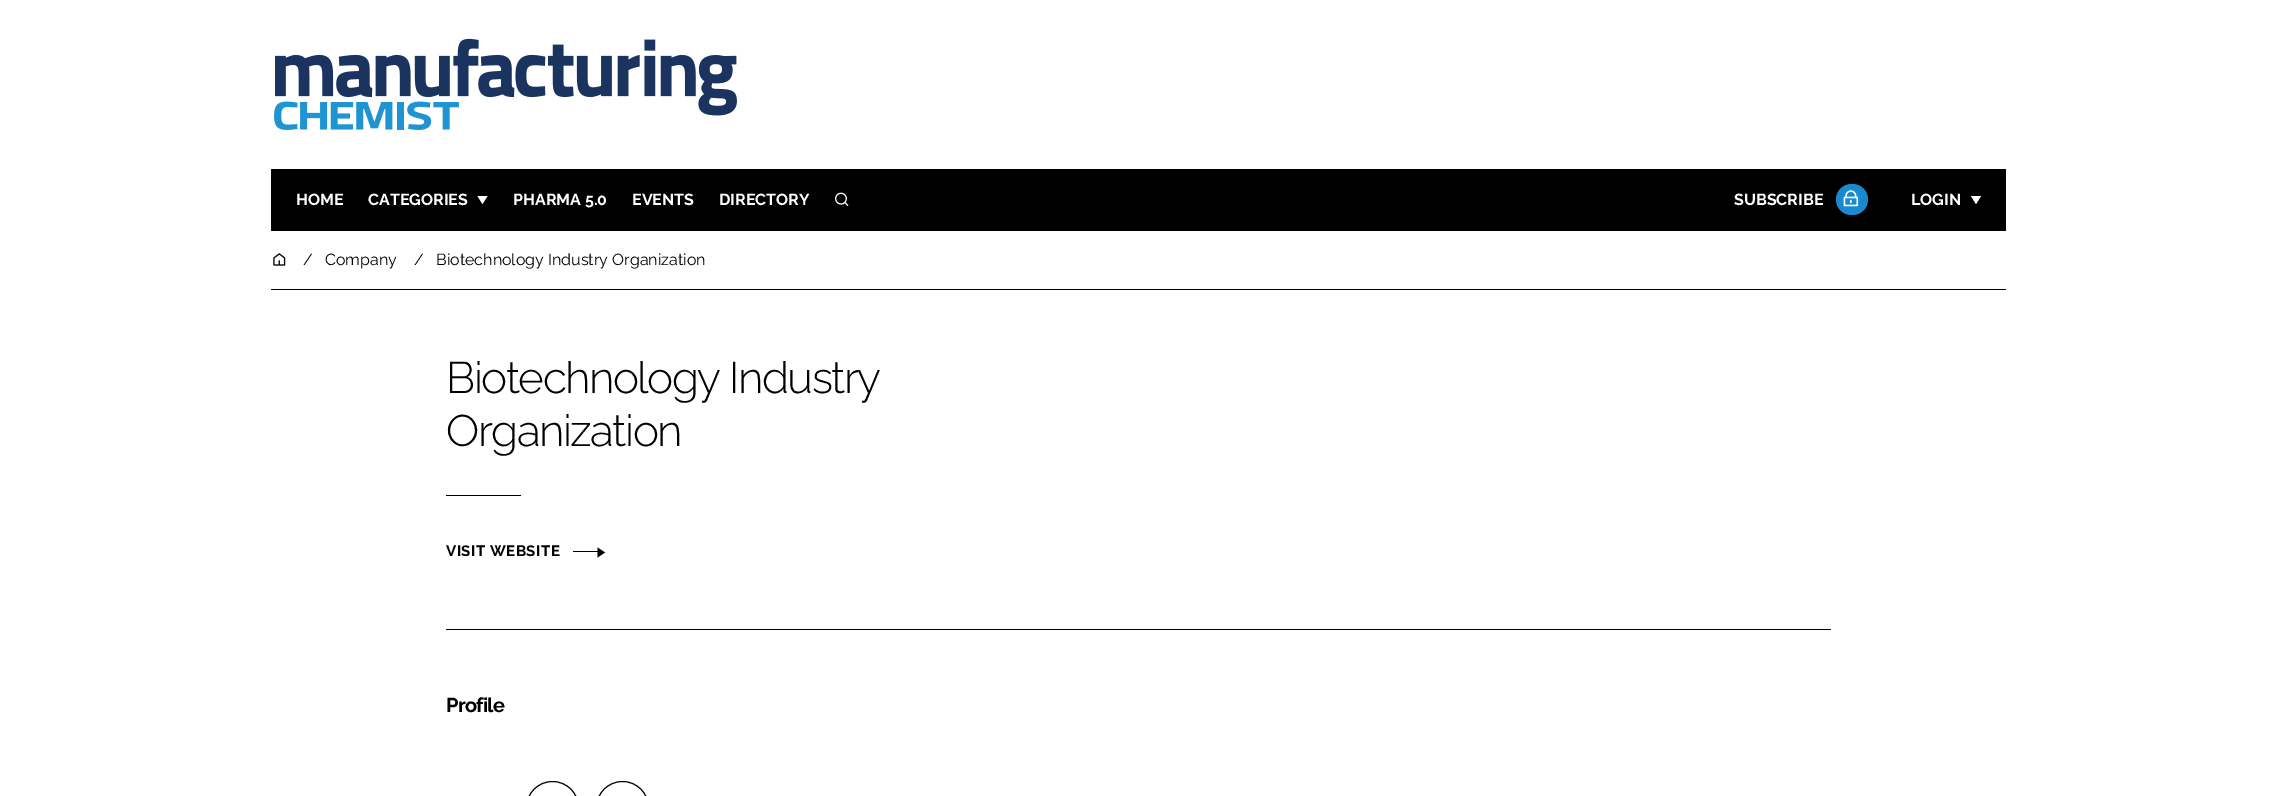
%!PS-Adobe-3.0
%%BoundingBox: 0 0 2276 796
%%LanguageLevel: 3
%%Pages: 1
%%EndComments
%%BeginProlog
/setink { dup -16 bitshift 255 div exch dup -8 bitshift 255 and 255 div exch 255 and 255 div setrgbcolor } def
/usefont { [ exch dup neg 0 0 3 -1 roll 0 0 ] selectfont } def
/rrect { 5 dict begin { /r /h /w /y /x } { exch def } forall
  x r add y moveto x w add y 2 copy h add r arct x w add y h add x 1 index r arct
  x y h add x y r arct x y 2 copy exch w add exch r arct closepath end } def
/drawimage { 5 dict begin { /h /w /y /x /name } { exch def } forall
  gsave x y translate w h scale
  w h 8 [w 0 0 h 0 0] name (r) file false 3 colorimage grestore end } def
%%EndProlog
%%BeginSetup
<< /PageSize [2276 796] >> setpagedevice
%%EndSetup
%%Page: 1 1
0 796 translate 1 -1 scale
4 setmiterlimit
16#FFFFFF setink
0 0 2276 796 rectfill
(img1.raw) 274 38 463 92 drawimage
16#000000 setink
271 169 1735 62 rectfill
/Raleway-Bold 16 usefont
16#FFFFFF setink
296 205 moveto (HOME) show
368 205 moveto (CATEGORIES) show
477.5 196 moveto 487.5 196 lineto 482.5 204 lineto closepath fill
[
    [(PHARMA 5.0) 513 205]
    [(EVENTS) 632 205]
    [(DIRECTORY) 719 205]
] { aload pop moveto show } forall
(img2.raw) 835 192 14 15 drawimage
1734 205 moveto (SUBSCRIBE) show
16#1A8AD0 setink
1836 184 32 31 15.5 rrect fill
(img3.raw) 1843 190 16 17 drawimage
16#FFFFFF setink
1911 205 moveto (LOGIN) show
1971 196 moveto 1981 196 lineto 1976 204 lineto closepath fill
16#000000 setink
271 289 1735 1 rectfill
(img4.raw) 273 253 13 13 drawimage
/Raleway-Regular 16 usefont
[
    [(/) 303 265]
    [(Company) 325 265]
    [(/) 414 265]
    [(Biotechnology Industry Organization) 436 265]
] { aload pop moveto show } forall
446 629 1385 1 rectfill
/Raleway-Light 44 usefont
446 393 moveto -1.5 0 (Biotechnology Industry) ashow
446 446 moveto -1.5 0 (Organization) ashow
446 495 75 1 rectfill
/Raleway-Bold 15 usefont
446 556 moveto 0.5 0 (VISIT WEBSITE) ashow
597.5 557.5 moveto 597.5 547.5 lineto 605 552.5 lineto closepath fill
573 551 25 1 rectfill
/Raleway-Bold 20 usefont
446 712 moveto -0.75 0 (Profile) ashow
526.5 781.5 52 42 26 rrect stroke
596.5 781.5 52 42 26 rrect stroke
showpage
%%EOF
